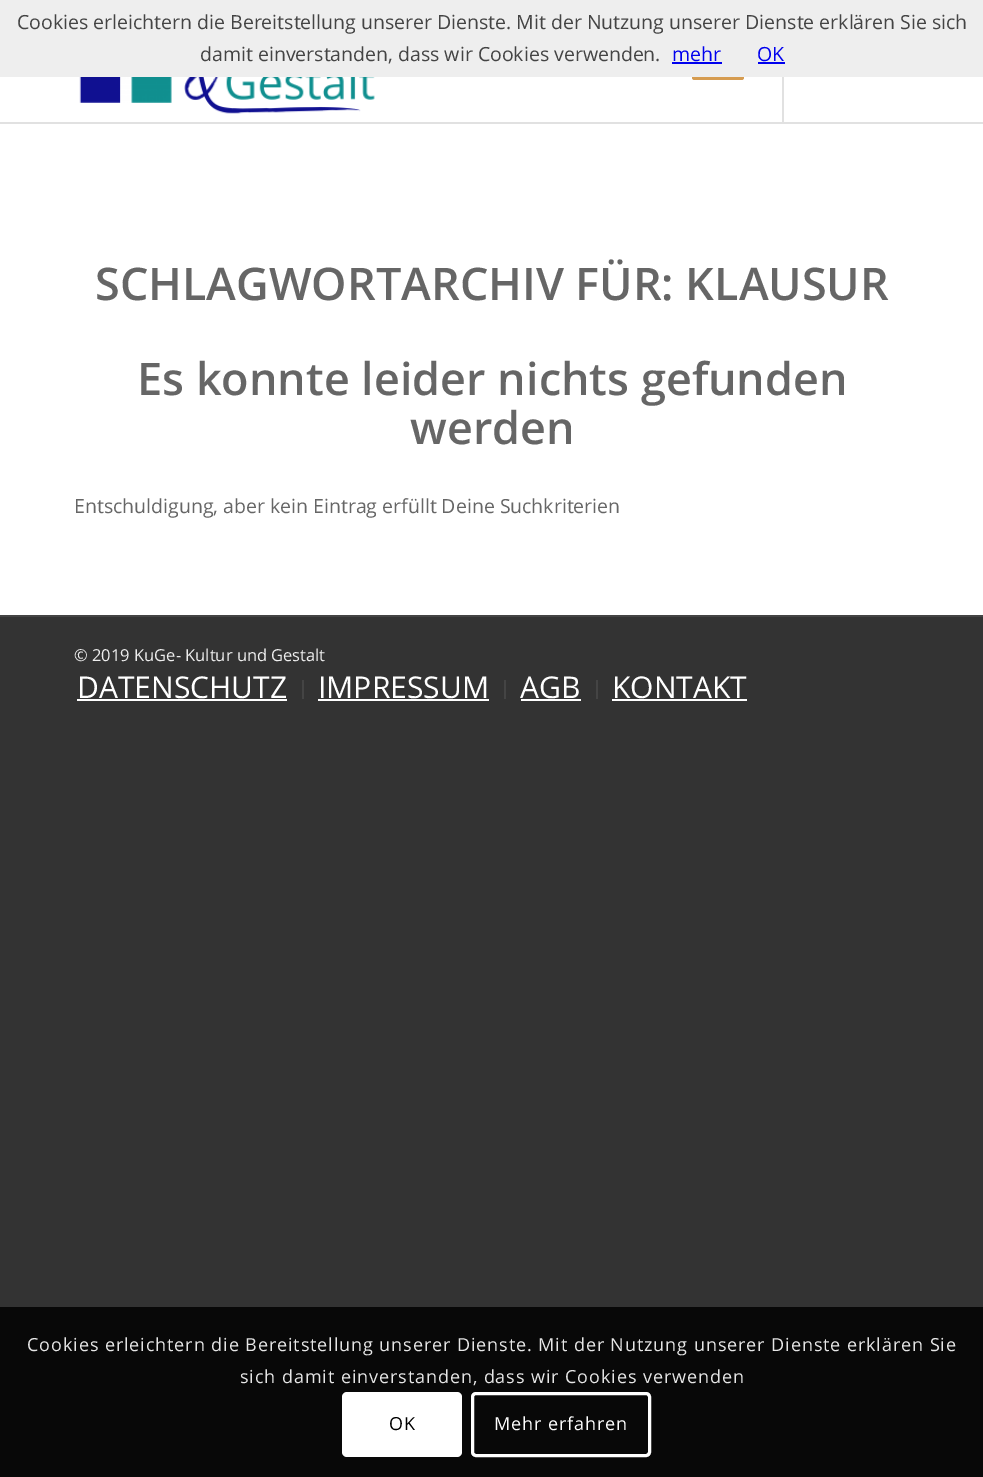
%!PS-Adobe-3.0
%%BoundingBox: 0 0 983 1477
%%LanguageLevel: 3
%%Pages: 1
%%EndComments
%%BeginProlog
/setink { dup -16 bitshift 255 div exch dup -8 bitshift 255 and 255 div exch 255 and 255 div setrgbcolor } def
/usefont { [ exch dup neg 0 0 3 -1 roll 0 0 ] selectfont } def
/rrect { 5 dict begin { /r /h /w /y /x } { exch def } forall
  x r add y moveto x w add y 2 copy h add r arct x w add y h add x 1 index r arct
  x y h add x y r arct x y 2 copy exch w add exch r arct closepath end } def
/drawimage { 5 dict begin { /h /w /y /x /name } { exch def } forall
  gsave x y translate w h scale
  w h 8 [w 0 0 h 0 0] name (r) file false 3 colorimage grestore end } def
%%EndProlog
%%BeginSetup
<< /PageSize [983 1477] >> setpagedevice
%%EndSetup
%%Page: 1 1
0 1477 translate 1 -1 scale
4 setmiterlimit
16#333333 setink
0 0 983 1477 rectfill
16#FFFFFF setink
0 77 983 538 rectfill
16#D69C50 setink
692 75 52 5 2.5 rrect fill
16#EEEEEE setink
0 0 983 77 rectfill
/OpenSans-Regular 19.5 usefont
16#444444 setink
17 29 moveto (Cookies erleichtern die Bereitstellung unserer Dienste. Mit der Nutzung unserer Dienste erklären Sie sich) show
200 61 moveto (damit einverstanden, dass wir Cookies verwenden.) show
16#0000EE setink
672 61 moveto (mehr) show
672 62 50 2 rectfill
757 61 moveto (OK) show
758 62 27 2 rectfill
16#E1E1E1 setink
0 122 983 2 rectfill
(img1.raw) 79 77 296 37 drawimage
782 77 2 45 rectfill
/OpenSans-SemiBold 45 usefont
16#666666 setink
[
    [(SCHLAGWORTARCHIV FÜR: KLAUSUR) 95 300]
    [(Es konnte leider nichts gefunden) 137 395]
    [(werden) 410 444]
] { aload pop moveto show } forall
/OpenSans-Regular 19.5 usefont
74 513 moveto (Entschuldigung, aber kein Eintrag erfüllt Deine Suchkriterien) show
16#444444 setink
0 615 983 2 rectfill
/OpenSans-Regular 16.5 usefont
16#EEEEEE setink
74 661 moveto (© 2019 KuGe- Kultur und Gestalt) show
/OpenSans-Regular 30 usefont
16#FFFFFF setink
77 698 moveto (DATENSCHUTZ) show
77 699 210 2 rectfill
16#444444 setink
302 680 2 19 rectfill
16#FFFFFF setink
318 698 moveto (IMPRESSUM) show
318 699 171 2 rectfill
16#444444 setink
504 680 2 19 rectfill
16#FFFFFF setink
520 698 moveto (AGB) show
521 699 60 2 rectfill
16#444444 setink
596 680 2 19 rectfill
16#FFFFFF setink
612 698 moveto (KONTAKT) show
612 699 135 2 rectfill
16#080808 setink
0 1307 983 170 rectfill
/OpenSans-Regular 18 usefont
16#E6E6E6 setink
27 1351 moveto 0.9 0 (Cookies erleichtern die Bereitstellung unserer Dienste. Mit der Nutzung unserer Dienste erklären Sie) ashow
240 1383 moveto 0.9 0 (sich damit einverstanden, dass wir Cookies verwenden) ashow
16#FFFFFF setink
342 1392 120 65 5 rrect fill
16#000000 setink
389 1430 moveto 0.9 0 (OK) ashow
16#FFFFFF setink
3 setlinewidth
472.5 1393.5 177 62 3.5 rrect stroke
494 1430 moveto 0.9 0 (Mehr erfahren) ashow
showpage
%%EOF
